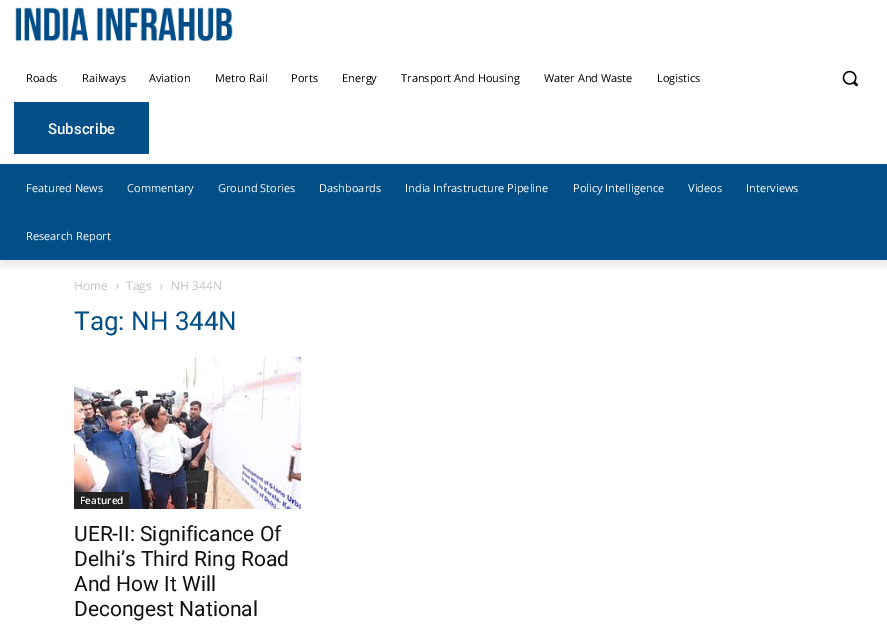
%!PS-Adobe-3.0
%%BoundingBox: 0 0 887 631
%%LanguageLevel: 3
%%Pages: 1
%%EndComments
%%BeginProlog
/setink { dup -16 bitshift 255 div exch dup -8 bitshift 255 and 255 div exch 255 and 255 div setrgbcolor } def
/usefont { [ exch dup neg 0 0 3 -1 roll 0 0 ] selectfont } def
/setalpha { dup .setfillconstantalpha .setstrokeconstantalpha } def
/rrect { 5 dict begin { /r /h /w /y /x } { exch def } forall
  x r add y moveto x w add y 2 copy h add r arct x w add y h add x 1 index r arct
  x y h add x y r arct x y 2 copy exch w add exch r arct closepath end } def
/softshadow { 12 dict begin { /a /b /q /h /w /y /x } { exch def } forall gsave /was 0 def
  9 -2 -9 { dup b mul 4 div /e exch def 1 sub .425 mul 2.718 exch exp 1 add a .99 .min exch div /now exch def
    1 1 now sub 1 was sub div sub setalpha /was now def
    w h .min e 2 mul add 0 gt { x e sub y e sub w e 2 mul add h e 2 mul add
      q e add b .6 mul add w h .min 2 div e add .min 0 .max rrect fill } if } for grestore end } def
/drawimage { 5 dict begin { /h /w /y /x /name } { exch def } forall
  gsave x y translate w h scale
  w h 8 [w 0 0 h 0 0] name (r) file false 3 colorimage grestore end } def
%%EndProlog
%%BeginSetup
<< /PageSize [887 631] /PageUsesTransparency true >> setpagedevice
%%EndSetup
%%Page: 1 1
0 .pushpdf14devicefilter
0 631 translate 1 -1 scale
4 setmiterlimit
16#FFFFFF setink
0 0 887 631 rectfill
(img1.raw) 15 7 218 35 drawimage
16#024E87 setink
14 102 135 52 rectfill
0 164 887 96 rectfill
gsave
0 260 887 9 rectclip
16#000000 setink
1 -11 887 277 0 4 0.08 softshadow
grestore
/OpenSans-Regular 11 usefont
16#000000 setink
[
    [(Roads) 26 82]
    [(Railways) 82 82]
    [(Aviation) 149 82]
    [(Metro Rail) 215 82]
    [(Ports) 291 82]
    [(Energy) 342 82]
    [(Transport And Housing) 401 82]
    [(Water And Waste) 544 82]
    [(Logistics) 657 82]
] { aload pop moveto show } forall
(img2.raw) 842 70 16 17 drawimage
/Roboto-Medium 15 usefont
16#FFFFFF setink
48 134 moveto (Subscribe) show
/OpenSans-Regular 11 usefont
[
    [(Featured News) 26 192]
    [(Commentary) 127 192]
    [(Ground Stories) 218 192]
    [(Dashboards) 319 192]
    [(India Infrastructure Pipeline) 405 192]
    [(Policy Intelligence) 573 192]
    [(Videos) 688 192]
    [(Interviews) 746 192]
    [(Research Report) 26 240]
] { aload pop moveto show } forall
/OpenSans-Regular 12 usefont
16#C3C3C3 setink
74 290 moveto (Home) show
(img3.raw) 116 284 3 5 drawimage
126 290 moveto (Tags) show
(img3.raw) 160 284 3 5 drawimage
171 290 moveto (NH 344N) show
/Roboto-Regular 26 usefont
16#024E87 setink
74 330 moveto (Tag: NH 344N) show
(img4.raw) 74 357 227 152 drawimage
16#222222 setink
74 492 55 17 rectfill
/OpenSans-SemiBold 10 usefont
16#FFFFFF setink
80 504 moveto (Featured) show
/Roboto-Regular 21 usefont
16#111111 setink
[
    [(UER-II: Significance Of) 74 541]
    [(Delhi’s Third Ring Road) 74 566]
    [(And How It Will) 74 591]
    [(Decongest National) 74 616]
] { aload pop moveto show } forall
.poppdf14devicefilter showpage
%%EOF
